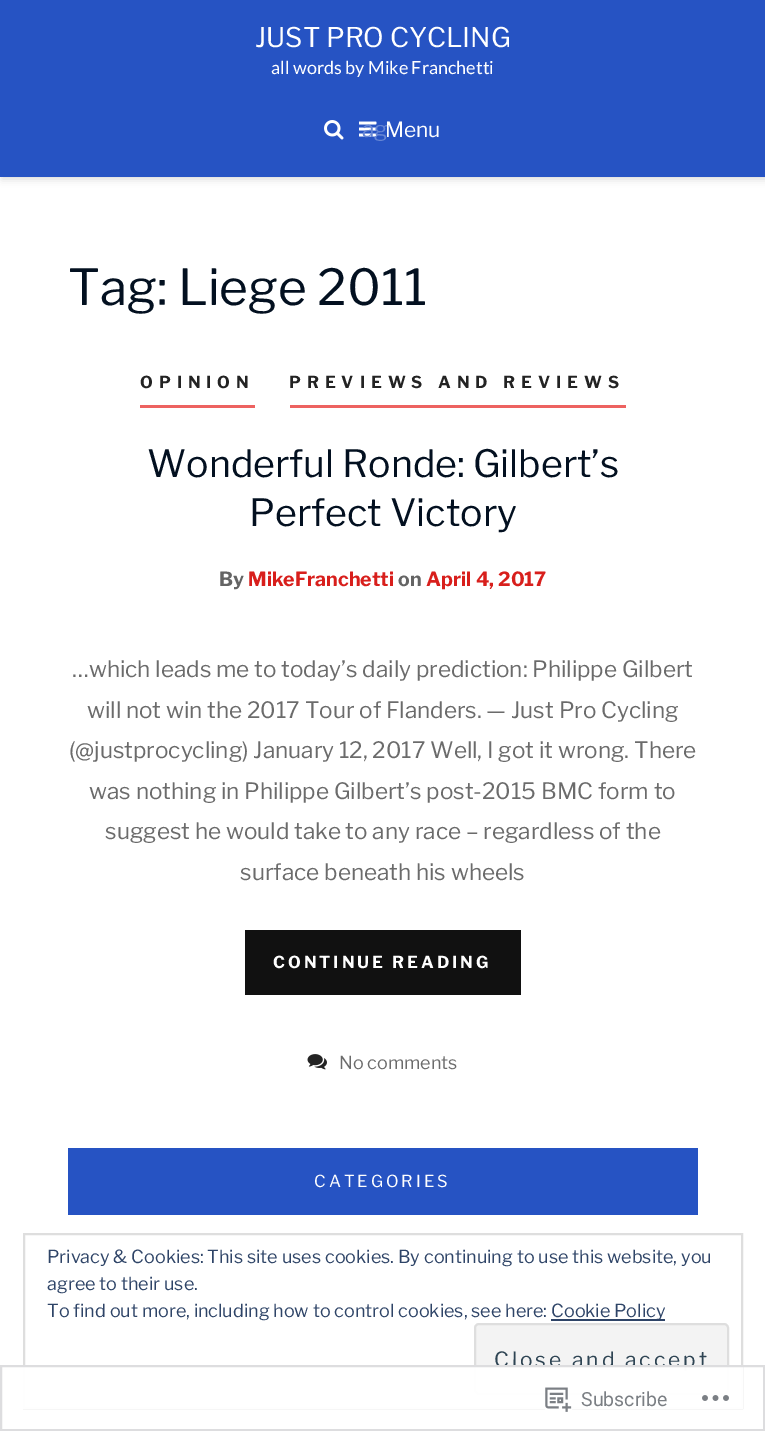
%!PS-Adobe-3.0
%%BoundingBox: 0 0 765 1431
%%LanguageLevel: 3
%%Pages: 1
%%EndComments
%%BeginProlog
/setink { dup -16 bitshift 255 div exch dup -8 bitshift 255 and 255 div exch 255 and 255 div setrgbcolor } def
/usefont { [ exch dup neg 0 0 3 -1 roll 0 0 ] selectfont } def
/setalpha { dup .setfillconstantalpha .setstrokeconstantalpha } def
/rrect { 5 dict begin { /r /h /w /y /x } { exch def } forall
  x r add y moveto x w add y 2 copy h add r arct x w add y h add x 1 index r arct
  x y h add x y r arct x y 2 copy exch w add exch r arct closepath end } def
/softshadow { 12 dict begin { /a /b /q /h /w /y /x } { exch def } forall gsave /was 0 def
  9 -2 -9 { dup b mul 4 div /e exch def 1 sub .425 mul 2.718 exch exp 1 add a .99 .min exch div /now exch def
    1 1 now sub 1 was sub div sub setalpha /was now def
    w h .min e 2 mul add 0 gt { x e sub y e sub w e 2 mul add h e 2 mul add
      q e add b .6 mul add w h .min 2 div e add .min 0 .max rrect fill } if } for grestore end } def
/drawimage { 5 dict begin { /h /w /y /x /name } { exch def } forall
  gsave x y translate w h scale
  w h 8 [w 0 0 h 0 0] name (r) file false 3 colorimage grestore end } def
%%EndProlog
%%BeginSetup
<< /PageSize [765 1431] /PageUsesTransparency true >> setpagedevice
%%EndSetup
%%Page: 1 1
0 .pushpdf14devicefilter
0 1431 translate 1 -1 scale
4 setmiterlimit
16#FFFFFF setink
0 0 765 1431 rectfill
16#000000 setink
2 2 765 177 0 4 0.15 softshadow
16#2653C3 setink
0 0 765 177 rectfill
/LibreFranklin-Regular 27 usefont
16#FFFFFF setink
255 47 moveto (JUST PRO CYCLING) show
/Lato-Regular 18 usefont
271 74 moveto (all words by Mike Franchetti) show
(img1.raw) 324 120 20 20 drawimage
(img2.raw) 359 121 18 16 drawimage
/LibreFranklin-Regular 21 usefont
385 137 moveto (Menu) show
/LibreFranklin-Regular 22.5 usefont
16#6585D4 setink
362 137 moveto (ag) show
/LibreFranklin-Regular 49.5 usefont
16#031020 setink
68 305 moveto (Tag: Liege 2011) show
/LibreFranklin-Bold 16.5 usefont
16#232323 setink
140 388 moveto 6 0 (OPINION) ashow
16#ED6260 setink
140 405 115 3 rectfill
16#232323 setink
289 388 moveto 6 0 (PREVIEWS AND REVIEWS) ashow
16#ED6260 setink
290 405 336 3 rectfill
/LibreFranklin-Regular 37.5 usefont
16#031020 setink
147 477 moveto (Wonderful Ronde: Gilbert’s) show
249 526 moveto (Perfect Victory) show
/LibreFranklin-Bold 19.5 usefont
16#646464 setink
219 586 moveto (By) show
16#D81F1C setink
248 586 moveto (MikeFranchetti) show
16#646464 setink
398 586 moveto (on) show
16#D81F1C setink
426 586 moveto (April 4, 2017) show
/LibreFranklin-Regular 22.5 usefont
16#6B6B6B setink
[
    [(…which leads me to today’s daily prediction: Philippe Gilbert) 72 677]
    [(will not win the 2017 Tour of Flanders. — Just Pro Cycling) 87 718]
    [(\(@justprocycling\) January 12, 2017 Well, I got it wrong. There) 69 758]
    [(was nothing in Philippe Gilbert’s post-2015 BMC form to) 89 799]
    [(suggest he would take to any race – regardless of the) 105 839]
    [(surface beneath his wheels) 240 880]
] { aload pop moveto show } forall
16#111111 setink
245 930 276 65 rectfill
/LibreFranklin-Bold 16.5 usefont
16#FFFFFF setink
273 968 moveto 3 0 (CONTINUE READING) ashow
(img3.raw) 307 1054 20 16 drawimage
/LibreFranklin-Regular 18 usefont
16#6B6B6B setink
339 1069 moveto (No comments) show
16#2653C3 setink
68 1148 630 67 rectfill
/LibreFranklin-Regular 16.5 usefont
16#FFFFFF setink
314 1187 moveto 3 0 (CATEGORIES) ashow
16#DEDEDE setink
2 setlinewidth
24 1234 718 174 rectstroke
/LibreFranklin-Regular 18 usefont
16#2E4467 setink
[
    [(Privacy & Cookies: This site uses cookies. By continuing to use this website, you) 47 1263]
    [(agree to their use.) 47 1290]
    [(To find out more, including how to control cookies, see here:) 47 1317]
] { aload pop moveto show } forall
551 1319 114 2 rectfill
551 1317 moveto (Cookie Policy) show
16#F3F3F3 setink
475 1324 253 70 4 rrect gsave fill grestore
16#DEDEDE setink
stroke
/LibreFranklin-Regular 21 usefont
16#2E4453 setink
494 1367 moveto 3 0 (Close and accept) ashow
0.98 setalpha
16#FFFFFF setink
23 1365 720 44 rectfill
16#DCDCDE setink
1 1366 763 64 rectstroke
1 setalpha
(img4.raw) 545 1387 27 25 drawimage
/Roboto-Regular 19.5 usefont
16#7B7F84 setink
581 1406 moveto (Subscribe) show
(img5.raw) 702 1395 27 6 drawimage
.poppdf14devicefilter showpage
%%EOF
